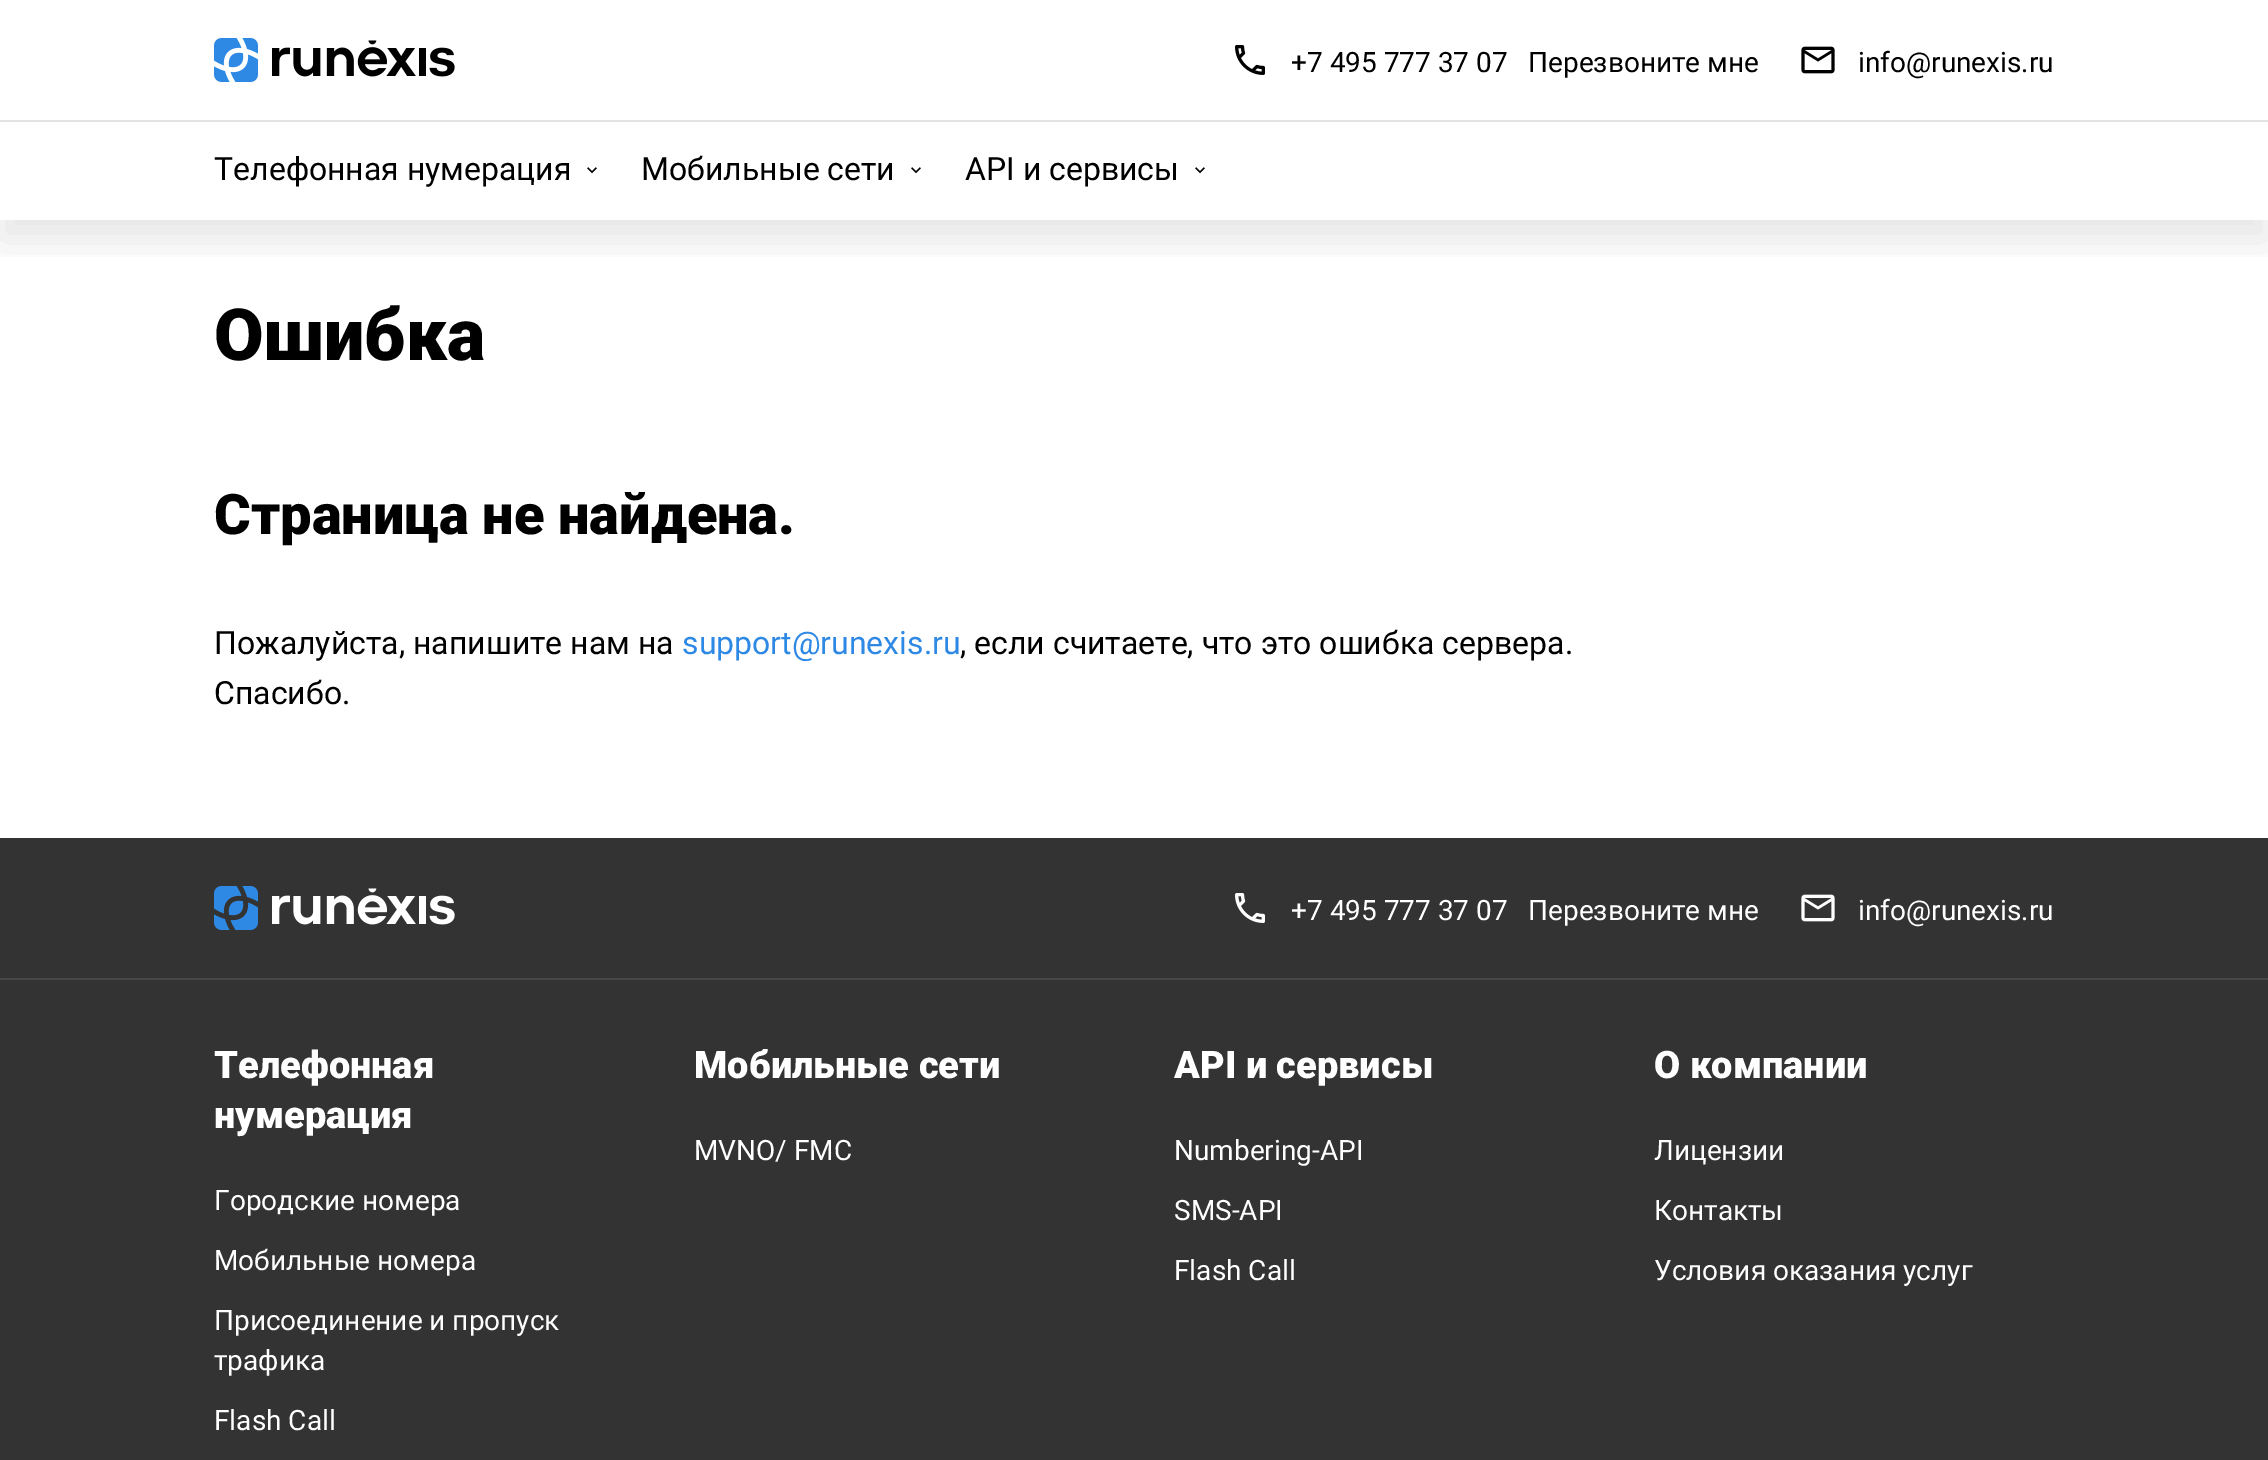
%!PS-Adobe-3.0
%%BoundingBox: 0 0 2268 1460
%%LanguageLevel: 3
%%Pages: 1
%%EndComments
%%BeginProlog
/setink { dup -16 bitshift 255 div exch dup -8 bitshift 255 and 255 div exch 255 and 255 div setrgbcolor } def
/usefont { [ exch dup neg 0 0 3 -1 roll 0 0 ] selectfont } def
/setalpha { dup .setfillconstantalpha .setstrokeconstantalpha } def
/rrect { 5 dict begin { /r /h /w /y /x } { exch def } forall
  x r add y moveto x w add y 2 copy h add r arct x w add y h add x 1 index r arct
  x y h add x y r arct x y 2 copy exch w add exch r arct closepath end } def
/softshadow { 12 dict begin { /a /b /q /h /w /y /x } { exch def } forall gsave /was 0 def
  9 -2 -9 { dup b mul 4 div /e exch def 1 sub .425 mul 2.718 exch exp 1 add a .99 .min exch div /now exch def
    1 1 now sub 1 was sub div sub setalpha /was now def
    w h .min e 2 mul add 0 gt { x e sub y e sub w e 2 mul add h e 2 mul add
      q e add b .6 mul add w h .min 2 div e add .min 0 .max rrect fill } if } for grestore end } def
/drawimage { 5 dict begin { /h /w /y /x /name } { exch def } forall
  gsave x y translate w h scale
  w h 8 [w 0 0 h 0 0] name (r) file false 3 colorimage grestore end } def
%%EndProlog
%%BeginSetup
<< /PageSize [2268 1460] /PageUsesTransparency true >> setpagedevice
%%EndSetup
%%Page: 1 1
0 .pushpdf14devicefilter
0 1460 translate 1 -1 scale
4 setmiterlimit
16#FFFFFF setink
0 0 2268 1460 rectfill
gsave
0 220 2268 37 rectclip
16#000000 setink
0 20 2268 220 0 20 0.1 softshadow
grestore
16#E1E3E5 setink
0 120 2268 2 rectfill
(img1.raw) 214 38 241 44 drawimage
(img2.raw) 1235 45 30 30 drawimage
/Roboto-Regular 28 usefont
16#000000 setink
1291 72 moveto (+7 495 777 37 07) show
1528 72 moveto (Перезвоните мне) show
(img3.raw) 1801 46 34 28 drawimage
1858 72 moveto (info@runexis.ru) show
/Roboto-Regular 32 usefont
214 180 moveto (Телефонная нумерация) show
(img4.raw) 587 167 10 7 drawimage
641 180 moveto (Мобильные сети) show
(img4.raw) 911 167 10 7 drawimage
965 180 moveto (API и сервисы) show
(img4.raw) 1195 167 10 7 drawimage
/Roboto-Black 72 usefont
214 360 moveto (Ошибка) show
/Roboto-Black 56 usefont
214 534 moveto (Страница не найдена.) show
/Roboto-Regular 32 usefont
214 654 moveto (Пожалуйста, напишите нам на) show
16#2E89E4 setink
682 654 moveto (support@runexis.ru) show
16#000000 setink
960 654 moveto (, если считаете, что это ошибка сервера.) show
214 704 moveto (Спасибо.) show
16#333333 setink
0 838 2268 622 rectfill
16#474747 setink
0 978 2268 2 rectfill
(img5.raw) 214 886 241 44 drawimage
(img6.raw) 1235 893 30 30 drawimage
/Roboto-Regular 28 usefont
16#FFFFFF setink
1291 920 moveto (+7 495 777 37 07) show
1528 920 moveto (Перезвоните мне) show
(img7.raw) 1801 894 34 28 drawimage
1858 920 moveto (info@runexis.ru) show
/Roboto-Black 38 usefont
214 1078 moveto (Телефонная) show
214 1128 moveto (нумерация) show
/Roboto-Regular 28 usefont
[
    [(Городские номера) 214 1210]
    [(Мобильные номера) 214 1270]
    [(Присоединение и пропуск) 214 1330]
    [(трафика) 214 1370]
    [(Flash Call) 214 1430]
] { aload pop moveto show } forall
/Roboto-Black 38 usefont
694 1078 moveto (Мобильные сети) show
/Roboto-Regular 28 usefont
694 1160 moveto (MVNO/ FMC) show
/Roboto-Black 38 usefont
1174 1078 moveto (API и сервисы) show
/Roboto-Regular 28 usefont
[
    [(Numbering-API) 1174 1160]
    [(SMS-API) 1174 1220]
    [(Flash Call) 1174 1280]
] { aload pop moveto show } forall
/Roboto-Black 38 usefont
1654 1078 moveto (О компании) show
/Roboto-Regular 28 usefont
[
    [(Лицензии) 1654 1160]
    [(Контакты) 1654 1220]
    [(Условия оказания услуг) 1654 1280]
] { aload pop moveto show } forall
.poppdf14devicefilter showpage
%%EOF
